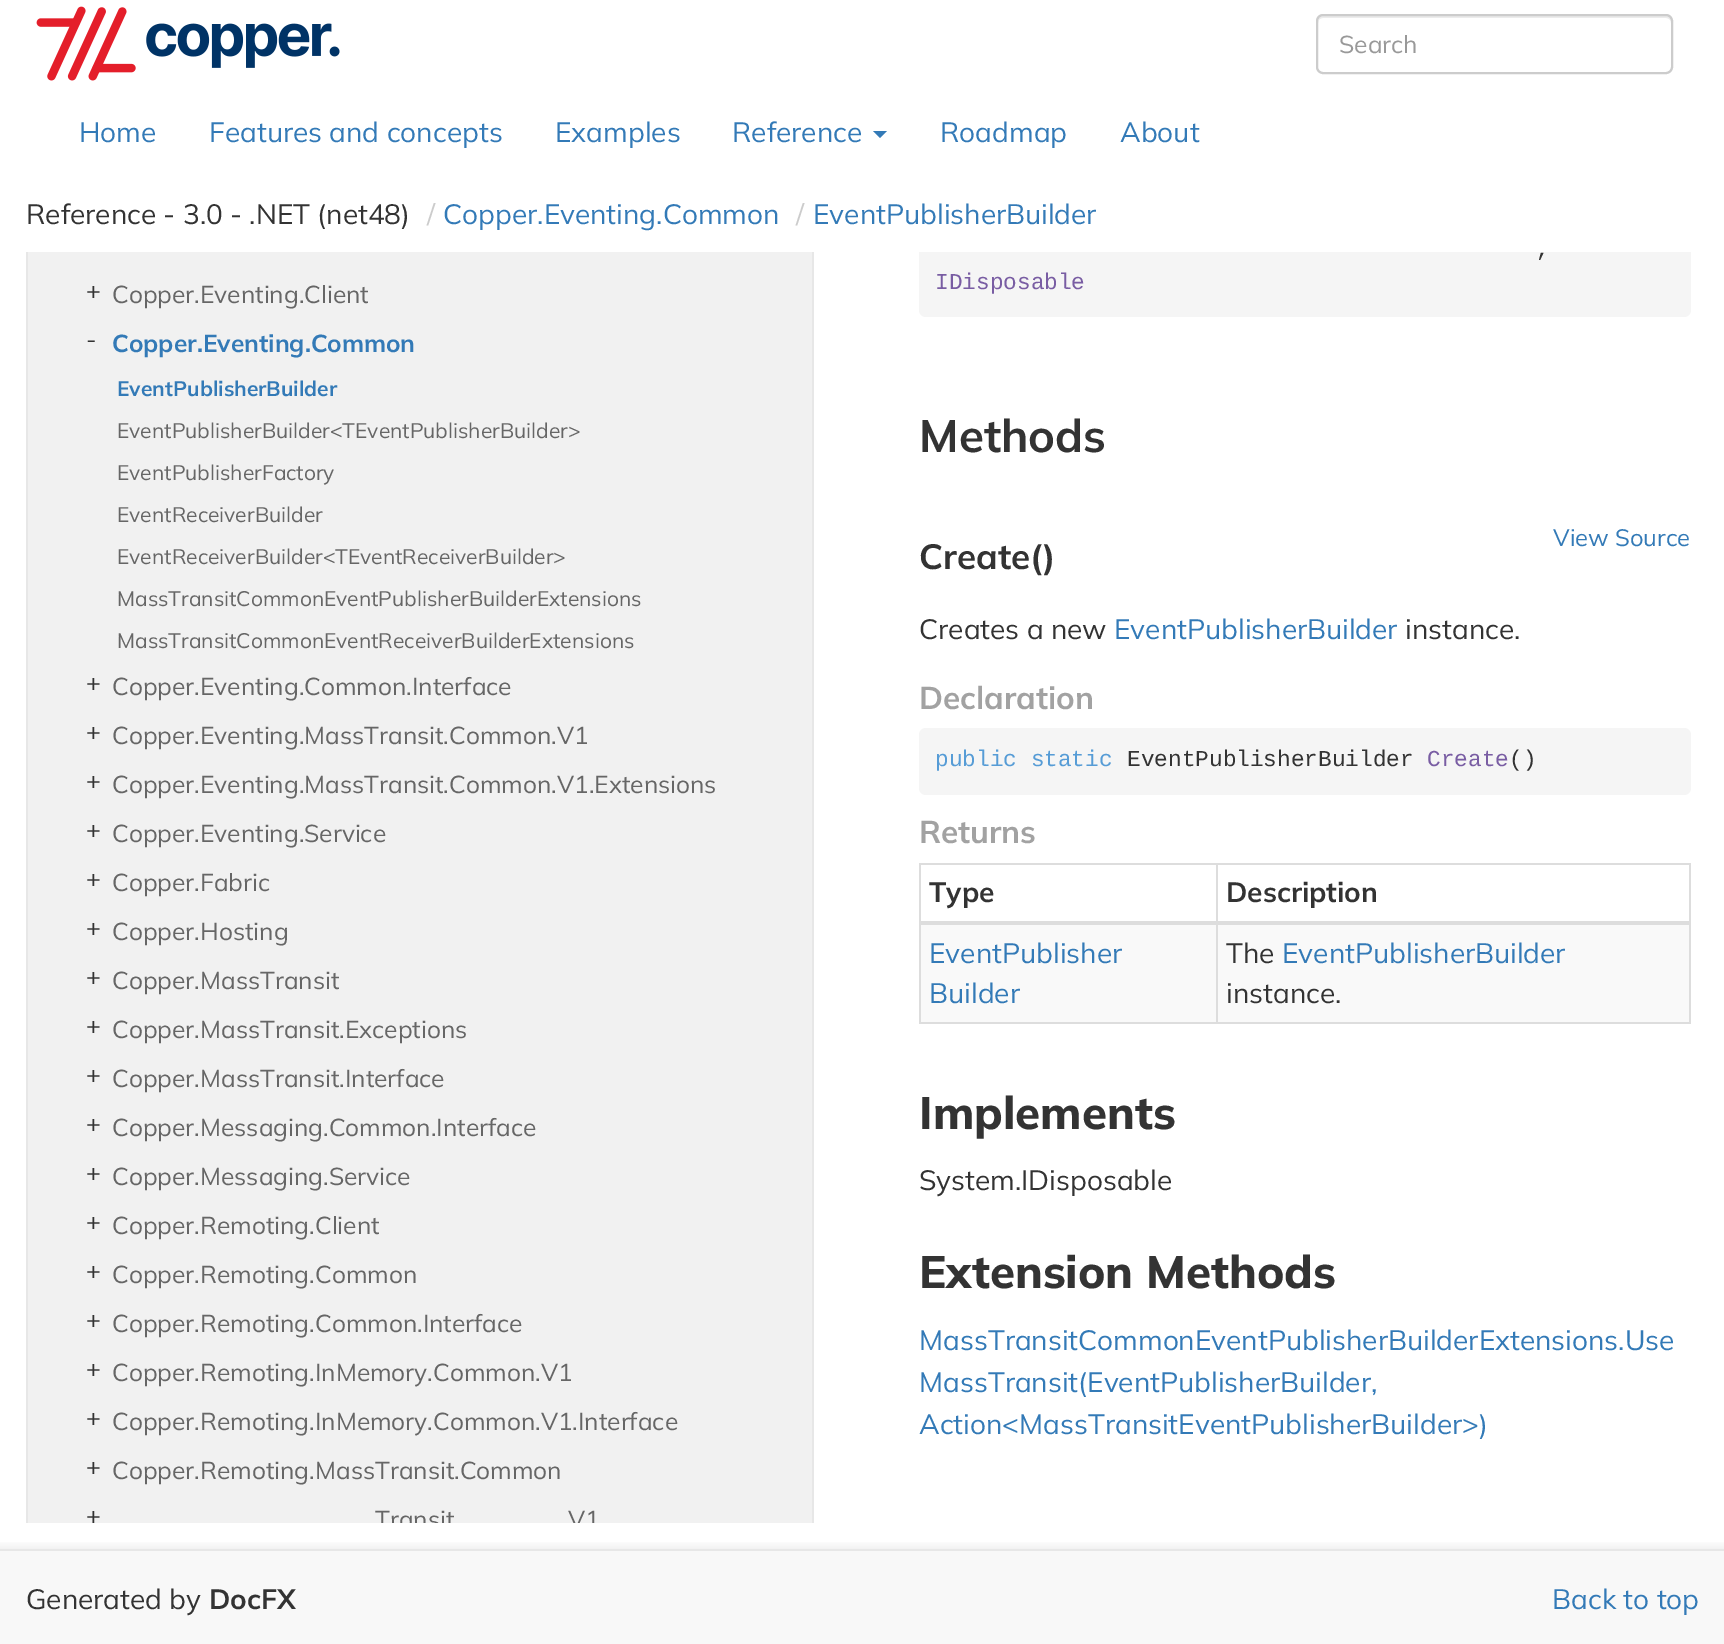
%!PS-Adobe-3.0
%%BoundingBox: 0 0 1724 1644
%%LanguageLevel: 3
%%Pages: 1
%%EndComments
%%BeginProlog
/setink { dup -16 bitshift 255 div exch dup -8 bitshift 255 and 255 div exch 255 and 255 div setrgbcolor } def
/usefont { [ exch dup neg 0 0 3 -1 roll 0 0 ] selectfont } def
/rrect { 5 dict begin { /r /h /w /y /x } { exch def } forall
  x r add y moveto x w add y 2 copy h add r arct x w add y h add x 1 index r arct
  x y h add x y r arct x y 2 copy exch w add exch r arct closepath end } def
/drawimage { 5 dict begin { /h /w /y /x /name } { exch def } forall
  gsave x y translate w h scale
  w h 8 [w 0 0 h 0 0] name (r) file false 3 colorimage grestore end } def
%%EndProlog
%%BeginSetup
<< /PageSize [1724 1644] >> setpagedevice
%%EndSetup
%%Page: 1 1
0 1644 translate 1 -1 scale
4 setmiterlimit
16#FFFFFF setink
0 0 1724 1644 rectfill
(img1.raw) 36 6 304 75 drawimage
16#ECECEC setink
1323 18 moveto 1666 18 lineto 1669 18 1671 20 1671 23 curveto 1671 20 1670 16 1666 16 curveto 1323 16 lineto 1319 16 1318 20 1318 23 curveto 1318 20 1320 18 1323 18 curveto closepath fill
16#CCCCCC setink
2 setlinewidth
1317 15 355 58 6 rrect stroke
/Mulish-Regular 24.5 usefont
16#999999 setink
1339 53 moveto (Search) show
/Mulish-Regular 28 usefont
16#337AB7 setink
[
    [(Home) 79 142]
    [(Features and concepts) 209 142]
    [(Examples) 555 142]
    [(Reference) 732 142]
] { aload pop moveto show } forall
873 131 moveto 887 131 lineto 880 138 lineto closepath fill
940 142 moveto (Roadmap) show
1120 142 moveto (About) show
16#F5F5F5 setink
919 186 772 131 7 rrect fill
16#FFFFFF setink
919 186 772 66 rectfill
16#333333 setink
26 224 moveto (Reference - 3.0 - .NET \(net48\)) show
16#CCCCCC setink
427 224 moveto (/) show
16#337AB7 setink
443 224 moveto (Copper.Eventing.Common) show
16#CCCCCC setink
796 224 moveto (/) show
16#337AB7 setink
813 224 moveto (EventPublisherBuilder) show
[
    [28 252 784 1271 16#F1F1F1]
    [812 252 2 1271 16#E7E7E7]
    [26 252 2 1271 16#E7E7E7]
] { aload pop setink rectfill } forall
/Mulish-Regular 24.5 usefont
16#333333 setink
86 299 moveto (+) show
16#666666 setink
112 303 moveto (Copper.Eventing.Client) show
16#333333 setink
86 348 moveto (-) show
/Mulish-Bold 24.5 usefont
16#337AB7 setink
112 352 moveto (Copper.Eventing.Common) show
/Mulish-Bold 21 usefont
117 396 moveto (EventPublisherBuilder) show
/Mulish-Regular 21 usefont
16#666666 setink
[
    [(EventPublisherBuilder<TEventPublisherBuilder>) 117 438]
    [(EventPublisherFactory) 117 480]
    [(EventReceiverBuilder) 117 522]
    [(EventReceiverBuilder<TEventReceiverBuilder>) 117 564]
    [(MassTransitCommonEventPublisherBuilderExtensions) 117 606]
    [(MassTransitCommonEventReceiverBuilderExtensions) 117 648]
] { aload pop moveto show } forall
/Mulish-Regular 24.5 usefont
16#333333 setink
86 691 moveto (+) show
16#666666 setink
112 695 moveto (Copper.Eventing.Common.Interface) show
16#333333 setink
86 740 moveto (+) show
16#666666 setink
112 744 moveto (Copper.Eventing.MassTransit.Common.V1) show
16#333333 setink
86 789 moveto (+) show
16#666666 setink
112 793 moveto (Copper.Eventing.MassTransit.Common.V1.Extensions) show
16#333333 setink
86 838 moveto (+) show
16#666666 setink
112 842 moveto (Copper.Eventing.Service) show
16#333333 setink
86 887 moveto (+) show
16#666666 setink
112 891 moveto (Copper.Fabric) show
16#333333 setink
86 936 moveto (+) show
16#666666 setink
112 940 moveto (Copper.Hosting) show
16#333333 setink
86 985 moveto (+) show
16#666666 setink
112 989 moveto (Copper.MassTransit) show
16#333333 setink
86 1034 moveto (+) show
16#666666 setink
112 1038 moveto (Copper.MassTransit.Exceptions) show
16#333333 setink
86 1083 moveto (+) show
16#666666 setink
112 1087 moveto (Copper.MassTransit.Interface) show
16#333333 setink
86 1132 moveto (+) show
16#666666 setink
112 1136 moveto (Copper.Messaging.Common.Interface) show
16#333333 setink
86 1181 moveto (+) show
16#666666 setink
112 1185 moveto (Copper.Messaging.Service) show
16#333333 setink
86 1230 moveto (+) show
16#666666 setink
112 1234 moveto (Copper.Remoting.Client) show
16#333333 setink
86 1279 moveto (+) show
16#666666 setink
112 1283 moveto (Copper.Remoting.Common) show
16#333333 setink
86 1328 moveto (+) show
16#666666 setink
112 1332 moveto (Copper.Remoting.Common.Interface) show
16#333333 setink
86 1377 moveto (+) show
16#666666 setink
112 1381 moveto (Copper.Remoting.InMemory.Common.V1) show
16#333333 setink
86 1426 moveto (+) show
16#666666 setink
112 1430 moveto (Copper.Remoting.InMemory.Common.V1.Interface) show
16#333333 setink
86 1475 moveto (+) show
16#666666 setink
112 1479 moveto (Copper.Remoting.MassTransit.Common) show
16#333333 setink
86 1524 moveto (+) show
gsave
112 1495 656 28 rectclip
16#666666 setink
375 1528 moveto (Transit) show
568 1528 moveto (V1) show
grestore
/LiberationMono-Regular 22.75 usefont
1536 256 moveto (,) show
16#795DA3 setink
935 289 moveto (IDisposable) show
/Mulish-Bold 45.5 usefont
16#333333 setink
919 452 moveto (Methods) show
/Mulish-Regular 23.75 usefont
16#337AB7 setink
1553 546 moveto (View Source) show
/Mulish-Bold 35 usefont
16#333333 setink
919 569 moveto (Create\(\)) show
/Mulish-Regular 28 usefont
919 639 moveto (Creates a new) show
16#337AB7 setink
1114 639 moveto (EventPublisherBuilder) show
16#333333 setink
1405 639 moveto (instance.) show
/Mulish-Bold 31.5 usefont
16#A2A2A2 setink
919 709 moveto (Declaration) show
16#F5F5F5 setink
919 728 772 67 7 rrect fill
/LiberationMono-Regular 22.75 usefont
16#569CD6 setink
935 766 moveto (public static) show
16#333333 setink
1127 766 moveto (EventPublisherBuilder) show
16#795DA3 setink
1427 766 moveto (Create) show
16#333333 setink
1509 766 moveto (\(\)) show
/Mulish-Bold 31.5 usefont
16#A2A2A2 setink
919 843 moveto (Returns) show
[
    [919 863 772 2 16#DDDDDD]
    [1689 863 2 161 16#DDDDDD]
    [919 1022 772 2 16#DDDDDD]
    [919 863 2 161 16#DDDDDD]
] { aload pop setink rectfill } forall
/Mulish-Bold 28 usefont
16#333333 setink
929 902 moveto (Type) show
[
    [921 925 768 97 16#F9F9F9]
    [1216 863 2 161 16#DDDDDD]
    [919 921 772 4 16#DDDDDD]
] { aload pop setink rectfill } forall
16#333333 setink
1226 902 moveto (Description) show
/Mulish-Regular 28 usefont
16#337AB7 setink
929 963 moveto (EventPublisher) show
929 1003 moveto (Builder) show
16#333333 setink
1226 963 moveto (The) show
16#337AB7 setink
1282 963 moveto (EventPublisherBuilder) show
16#333333 setink
1226 1003 moveto (instance.) show
/Mulish-ExtraBold 45.5 usefont
919 1129 moveto (Implements) show
/Mulish-Regular 28 usefont
919 1190 moveto (System.IDisposable) show
/Mulish-ExtraBold 45.5 usefont
919 1288 moveto (Extension Methods) show
/Mulish-Regular 28 usefont
16#337AB7 setink
[
    [(MassTransitCommonEventPublisherBuilderExtensions.Use) 919 1350]
    [(MassTransit\(EventPublisherBuilder,) 919 1392]
    [(Action<MassTransitEventPublisherBuilder>\)) 919 1434]
] { aload pop moveto show } forall
gsave 0 1542 moveto 1724 1542 lineto 1724 1549 lineto 0 1549 lineto closepath clip newpath
<< /ShadingType 2 /ColorSpace /DeviceRGB /Coords [863 1540 863 1549] /Extend [true true] /Function << /FunctionType 2 /Domain [0 1] /C0 [1 1 1] /C1 [0.949 0.949 0.949] /N 1 >> >> shfill grestore
16#F8F8F8 setink
0 1551 1724 93 rectfill
16#E7E7E7 setink
0 1549 1724 2 rectfill
16#333333 setink
26 1609 moveto (Generated by) show
/Mulish-Bold 28 usefont
209 1609 moveto (DocFX) show
/Mulish-Regular 28 usefont
16#337AB7 setink
1552 1609 moveto (Back to top) show
showpage
%%EOF
